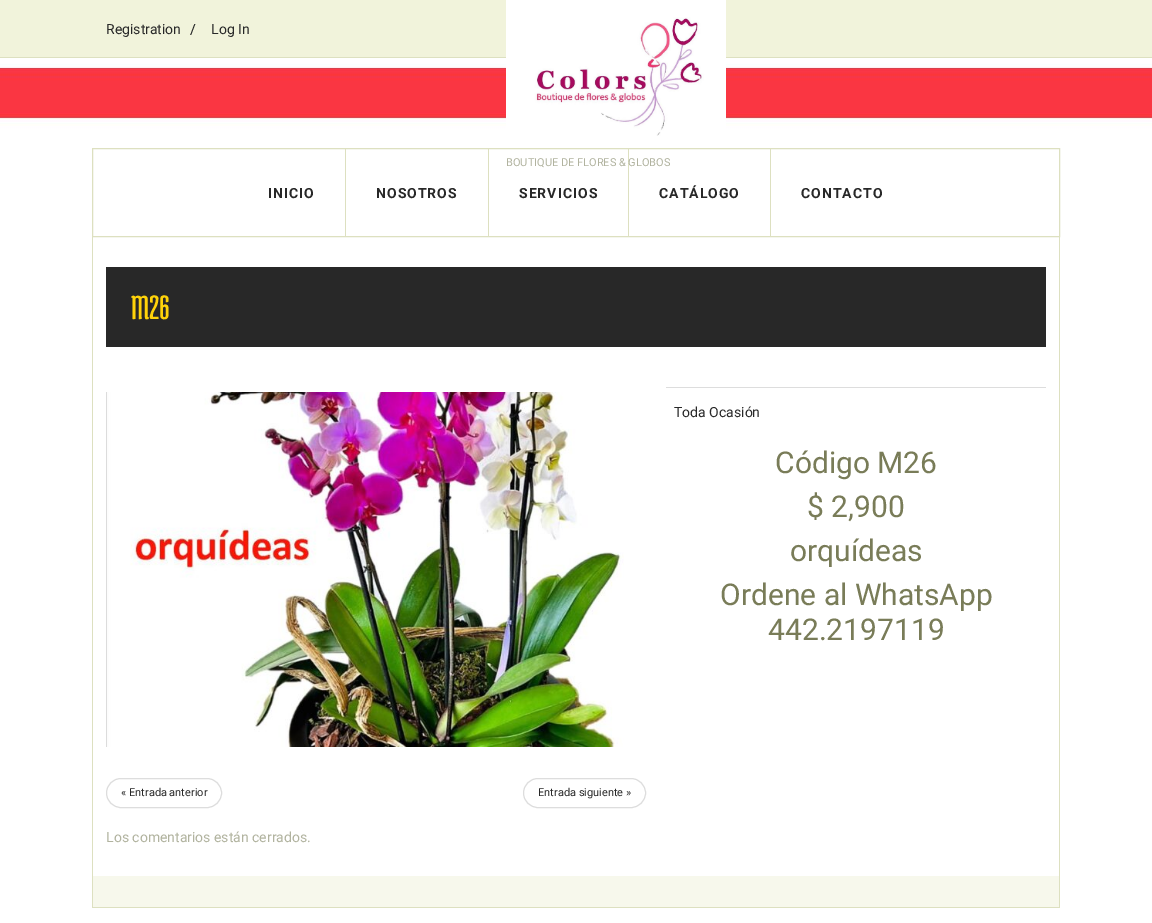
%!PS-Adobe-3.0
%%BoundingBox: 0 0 1152 923
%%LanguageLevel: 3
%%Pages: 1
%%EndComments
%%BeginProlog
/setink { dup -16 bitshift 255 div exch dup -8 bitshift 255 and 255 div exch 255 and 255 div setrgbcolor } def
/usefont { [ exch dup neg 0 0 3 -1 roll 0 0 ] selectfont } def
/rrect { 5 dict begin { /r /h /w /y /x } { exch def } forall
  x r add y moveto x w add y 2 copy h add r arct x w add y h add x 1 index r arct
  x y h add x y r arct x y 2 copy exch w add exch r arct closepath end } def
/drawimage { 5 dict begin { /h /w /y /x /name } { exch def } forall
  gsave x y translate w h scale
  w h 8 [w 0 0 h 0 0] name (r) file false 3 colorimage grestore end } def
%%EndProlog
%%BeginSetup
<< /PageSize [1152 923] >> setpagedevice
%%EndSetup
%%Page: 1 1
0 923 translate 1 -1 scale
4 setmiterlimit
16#FFFFFF setink
0 0 1152 923 rectfill
(img1.raw) 0 58 1152 865 drawimage
16#F1F3DB setink
0 0 1152 57 rectfill
16#DDE0C0 setink
0 57 1152 1 rectfill
(img2.raw) 190 24 6 11 drawimage
/Roboto-Regular 14 usefont
16#282828 setink
106 34 moveto (Registration) show
211 34 moveto (Log In) show
(img3.raw) 506 0 220 136 drawimage
16#DDE0C0 setink
92.5 148.5 967 88 rectstroke
628 149 1 88 rectfill
/Roboto-Regular 11 usefont
16#B1B39F setink
506 166 moveto (BOUTIQUE DE FLORES & GLOBOS) show
16#DDE0C0 setink
345 149 1 88 rectfill
/Roboto-Bold 14 usefont
16#282828 setink
268 198 moveto 1 0 (INICIO) ashow
16#DDE0C0 setink
488 149 1 88 rectfill
16#282828 setink
376 198 moveto 1 0 (NOSOTROS) ashow
519 198 moveto 1 0 (SERVICIOS) ashow
16#DDE0C0 setink
770 149 1 88 rectfill
16#282828 setink
659 198 moveto 1 0 (CATÁLOGO) ashow
801 198 moveto 1 0 (CONTACTO) ashow
[
    [1059 237 1 671 16#DDE0C0]
    [92 237 1 639 16#DDE0C0]
    [106 267 940 80 16#282828]
] { aload pop setink rectfill } forall
/MedulaOne-Regular 36 usefont
16#FFD30A setink
131 319 moveto (M26) show
16#DDDDDD setink
666 387 380 1 rectfill
/Roboto-Regular 14 usefont
16#282828 setink
674 417 moveto (Toda Ocasión) show
/Roboto-Regular 30 usefont
16#797C58 setink
[
    [(Código M26) 775 473]
    [($ 2,900) 807 517]
    [(orquídeas) 790 561]
    [(Ordene al WhatsApp) 720 605]
    [(442.2197119) 768 640]
] { aload pop moveto show } forall
(img4.raw) 106 392 518 355 drawimage
16#DDDDDD setink
106.5 778.5 115 29 14.5 rrect stroke
/Roboto-Regular 11 usefont
16#282828 setink
121 796 moveto (« Entrada anterior) show
16#DDDDDD setink
523.5 778.5 122 29 14.5 rrect stroke
16#282828 setink
538 796 moveto (Entrada siguiente ») show
/Roboto-Regular 14 usefont
16#B1B39F setink
106 842 moveto (Los comentarios están cerrados.) show
[
    [93 876 966 31 16#F7F8EC]
    [92 907 968 1 16#DDE0C0]
    [92 876 1 32 16#DDE0C0]
] { aload pop setink rectfill } forall
showpage
%%EOF
